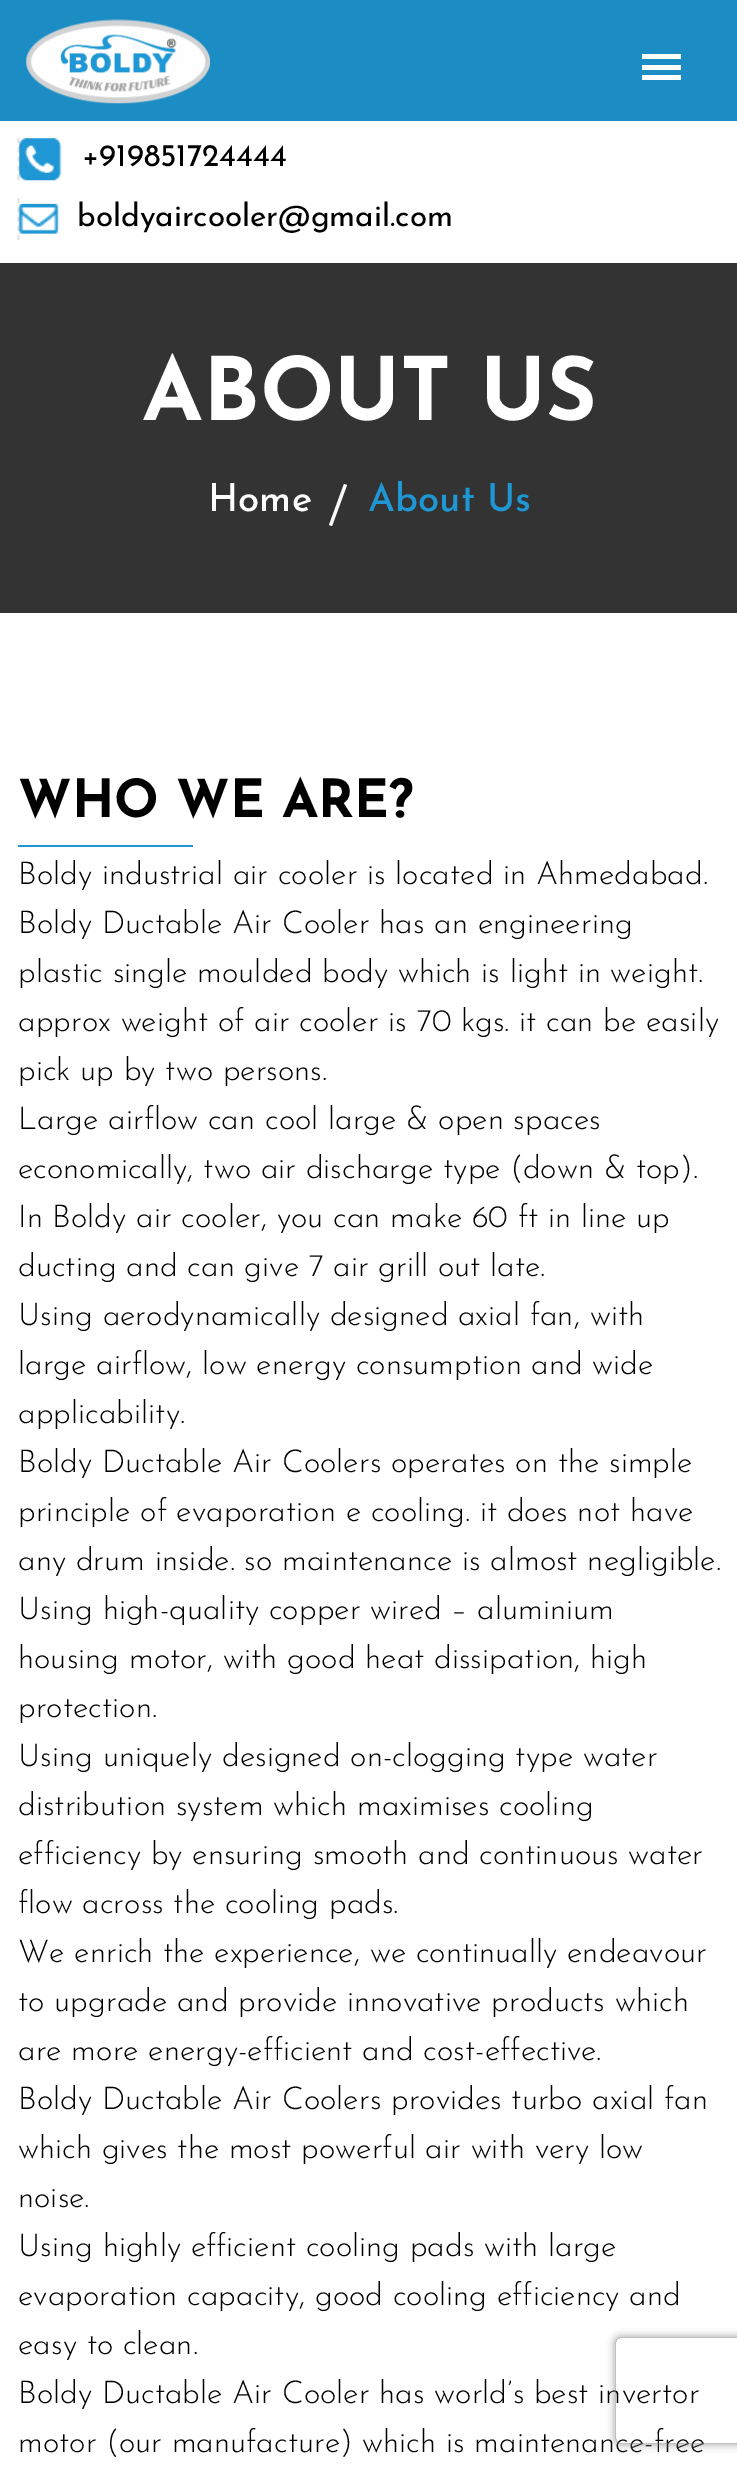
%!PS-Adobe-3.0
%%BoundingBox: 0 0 737 2466
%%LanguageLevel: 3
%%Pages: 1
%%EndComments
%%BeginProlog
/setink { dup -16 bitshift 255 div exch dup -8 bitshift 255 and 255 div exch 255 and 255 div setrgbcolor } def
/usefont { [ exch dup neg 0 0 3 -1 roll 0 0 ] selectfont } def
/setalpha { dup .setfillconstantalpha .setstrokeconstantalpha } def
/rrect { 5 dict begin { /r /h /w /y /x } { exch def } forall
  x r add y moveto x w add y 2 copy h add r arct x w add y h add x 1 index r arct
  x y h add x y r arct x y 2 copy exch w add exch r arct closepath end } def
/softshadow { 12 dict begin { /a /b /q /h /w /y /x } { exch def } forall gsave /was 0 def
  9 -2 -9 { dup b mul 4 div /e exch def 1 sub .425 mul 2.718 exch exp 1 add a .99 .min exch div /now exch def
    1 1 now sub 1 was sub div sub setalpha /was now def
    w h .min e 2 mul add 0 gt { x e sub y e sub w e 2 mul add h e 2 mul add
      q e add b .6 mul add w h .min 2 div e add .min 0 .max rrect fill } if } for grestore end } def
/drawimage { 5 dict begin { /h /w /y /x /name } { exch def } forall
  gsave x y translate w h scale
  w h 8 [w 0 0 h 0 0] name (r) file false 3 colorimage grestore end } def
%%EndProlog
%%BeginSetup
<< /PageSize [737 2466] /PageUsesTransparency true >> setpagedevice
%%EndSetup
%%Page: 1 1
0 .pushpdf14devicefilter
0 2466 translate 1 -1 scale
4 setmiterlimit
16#FFFFFF setink
0 0 737 2466 rectfill
16#1B8CC4 setink
0 0 737 121 rectfill
(img1.raw) 26 19 184 85 drawimage
[
    [642 54 39 5 16#FFFFFF]
    [642 65 39 5 16#FFFFFF]
    [642 75 39 5 16#FFFFFF]
] { aload pop setink rectfill } forall
16#E1E1E1 setink
1.8 setlinewidth
[5.25 3.94] 0 setdash
18.5 138 moveto 18.5 180 lineto stroke
(img2.raw) 19 138 43 43 drawimage
/JosefinSans-Regular 31.5 usefont
16#000000 setink
82 166 moveto (+919851724444) show
16#E1E1E1 setink
18.5 198 moveto 18.5 240 lineto stroke
(img3.raw) 17 203 43 31 drawimage
16#000000 setink
77 226 moveto (boldyaircooler@gmail.com) show
16#333333 setink
0 263 737 350 rectfill
/JosefinSans-Bold 87.5 usefont
16#FFFFFF setink
142 420 moveto (ABOUT US) show
/JosefinSans-Medium 38.5 usefont
208 511 moveto (Home) show
344 484 moveto 347 485 lineto 332 526 lineto 329 525 lineto closepath fill
16#1F97D4 setink
368 511 moveto (About Us) show
/JosefinSans-Bold 52.5 usefont
16#000000 setink
18 817 moveto (WHO WE ARE?) show
16#1F97D4 setink
18 845 175 2 rectfill
/JosefinSans-Light 31.5 usefont
16#000000 setink
[
    [(Boldy industrial air cooler is located in Ahmedabad.) 18 884]
    [(Boldy Ductable Air Cooler has an engineering) 18 933]
    [(plastic single moulded body which is light in weight.) 18 982]
    [(approx weight of air cooler is 70 kgs. it can be easily) 18 1031]
    [(pick up by two persons.) 18 1080]
    [(Large airflow can cool large & open spaces) 18 1129]
    [(economically, two air discharge type \(down & top\).) 18 1178]
    [(In Boldy air cooler, you can make 60 ft in line up) 18 1227]
    [(ducting and can give 7 air grill out late.) 18 1276]
    [(Using aerodynamically designed axial fan, with) 18 1325]
    [(large airflow, low energy consumption and wide) 18 1374]
    [(applicability.) 18 1423]
    [(Boldy Ductable Air Coolers operates on the simple) 18 1472]
    [(principle of evaporation e cooling. it does not have) 18 1521]
    [(any drum inside. so maintenance is almost negligible.) 18 1570]
    [(Using high-quality copper wired – aluminium) 18 1619]
    [(housing motor, with good heat dissipation, high) 18 1668]
    [(protection.) 18 1717]
    [(Using uniquely designed on-clogging type water) 18 1766]
    [(distribution system which maximises cooling) 18 1815]
    [(efficiency by ensuring smooth and continuous water) 18 1864]
    [(flow across the cooling pads.) 18 1913]
    [(We enrich the experience, we continually endeavour) 18 1962]
    [(to upgrade and provide innovative products which) 18 2011]
    [(are more energy-efficient and cost-effective.) 18 2060]
    [(Boldy Ductable Air Coolers provides turbo axial fan) 18 2109]
    [(which gives the most powerful air with very low) 18 2158]
    [(noise.) 18 2207]
    [(Using highly efficient cooling pads with large) 18 2256]
    [(evaporation capacity, good cooling efficiency and) 18 2305]
    [(easy to clean.) 18 2354]
    [(Boldy Ductable Air Cooler has world’s best invertor) 18 2403]
    [(motor \(our manufacture\) which is maintenance-free) 18 2452]
] { aload pop moveto show } forall
gsave
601 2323 moveto 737 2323 lineto 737 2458 lineto 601 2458 lineto closepath 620 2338 moveto 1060 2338 lineto 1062 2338 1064 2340 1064 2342 curveto 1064 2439 lineto 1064 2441 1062 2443 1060 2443 curveto 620 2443 lineto 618 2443 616 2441 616 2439 curveto 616 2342 lineto 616 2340 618 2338 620 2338 curveto closepath eoclip newpath
16#808080 setink
616 2338 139 105 4 4.5 1 softshadow
grestore
.poppdf14devicefilter showpage
%%EOF
